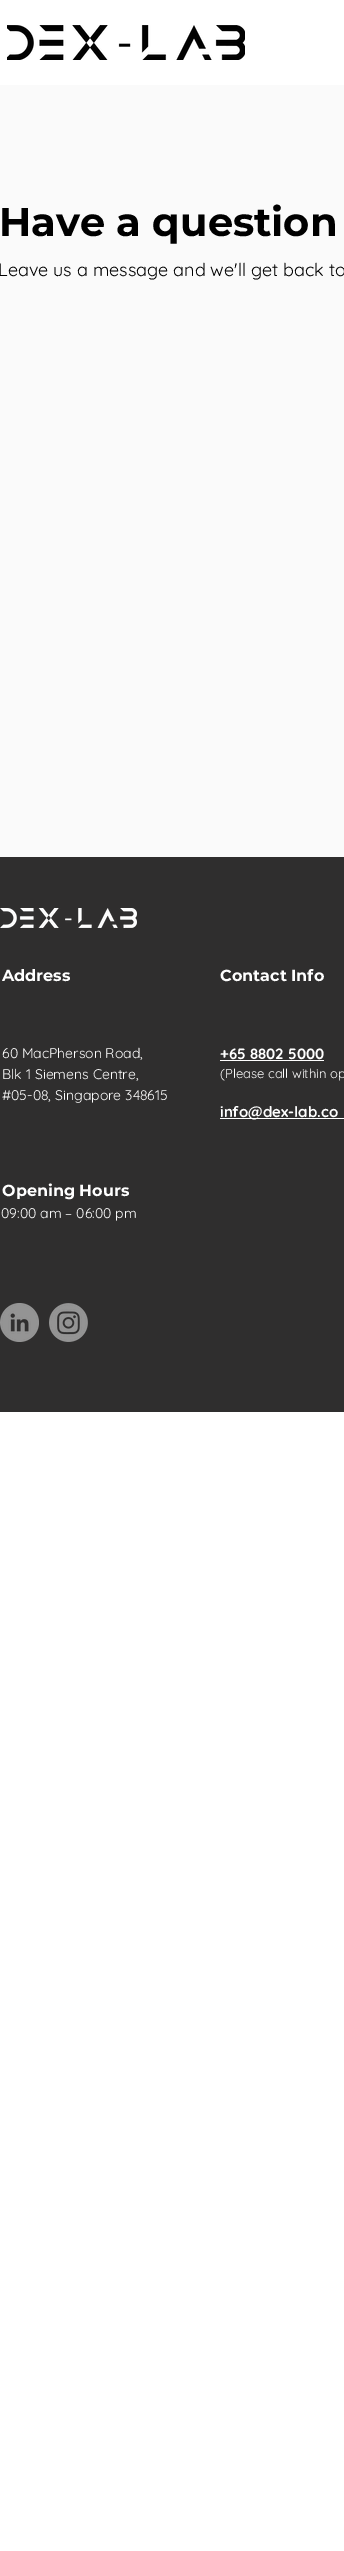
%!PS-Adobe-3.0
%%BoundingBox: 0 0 344 2551
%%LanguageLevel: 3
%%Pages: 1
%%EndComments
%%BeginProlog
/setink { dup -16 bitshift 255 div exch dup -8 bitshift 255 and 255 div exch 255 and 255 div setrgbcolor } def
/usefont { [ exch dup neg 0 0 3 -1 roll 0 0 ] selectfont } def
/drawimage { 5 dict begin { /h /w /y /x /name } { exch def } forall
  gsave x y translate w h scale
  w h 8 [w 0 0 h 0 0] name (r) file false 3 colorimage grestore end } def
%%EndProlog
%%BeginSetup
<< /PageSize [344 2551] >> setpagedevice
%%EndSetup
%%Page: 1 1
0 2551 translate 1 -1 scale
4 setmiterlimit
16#FFFFFF setink
0 0 344 2551 rectfill
(img1.raw) 7 25 238 35 drawimage
16#FAFAFA setink
0 85 344 772 rectfill
/Montserrat-Bold 40 usefont
16#000000 setink
-1 236 moveto (Have a question) show
/Quicksand-Regular 18 usefont
-2 276 moveto (Leave us a message and we'll get back to) show
16#2F2E2E setink
0 857 344 555 rectfill
(img2.raw) 0 908 137 20 drawimage
/Montserrat-Bold 16 usefont
16#FFFFFF setink
2 981 moveto (Address) show
220 981 moveto (Contact Info) show
/Quicksand-Regular 14 usefont
[
    [(60 MacPherson Road,) 2 1058]
    [(Blk 1 Siemens Centre,) 2 1079]
    [(#05-08, Singapore 348615) 2 1100]
] { aload pop moveto show } forall
/Quicksand-Bold 15 usefont
220 1059 moveto (+65 8802 5000) show
220 1060 104 1 rectfill
/Quicksand-Regular 13 usefont
220 1078 moveto (\(Please call within op) show
220 1118 124 1 rectfill
/Quicksand-Bold 15 usefont
220 1117 moveto (info@dex-lab.co) show
/Montserrat-Bold 16 usefont
2 1196 moveto (Opening Hours) show
/Quicksand-Regular 14 usefont
1 1218 moveto (09:00 am – 06:00 pm) show
(img3.raw) 0 1303 39 39 drawimage
(img4.raw) 49 1303 39 39 drawimage
showpage
%%EOF
